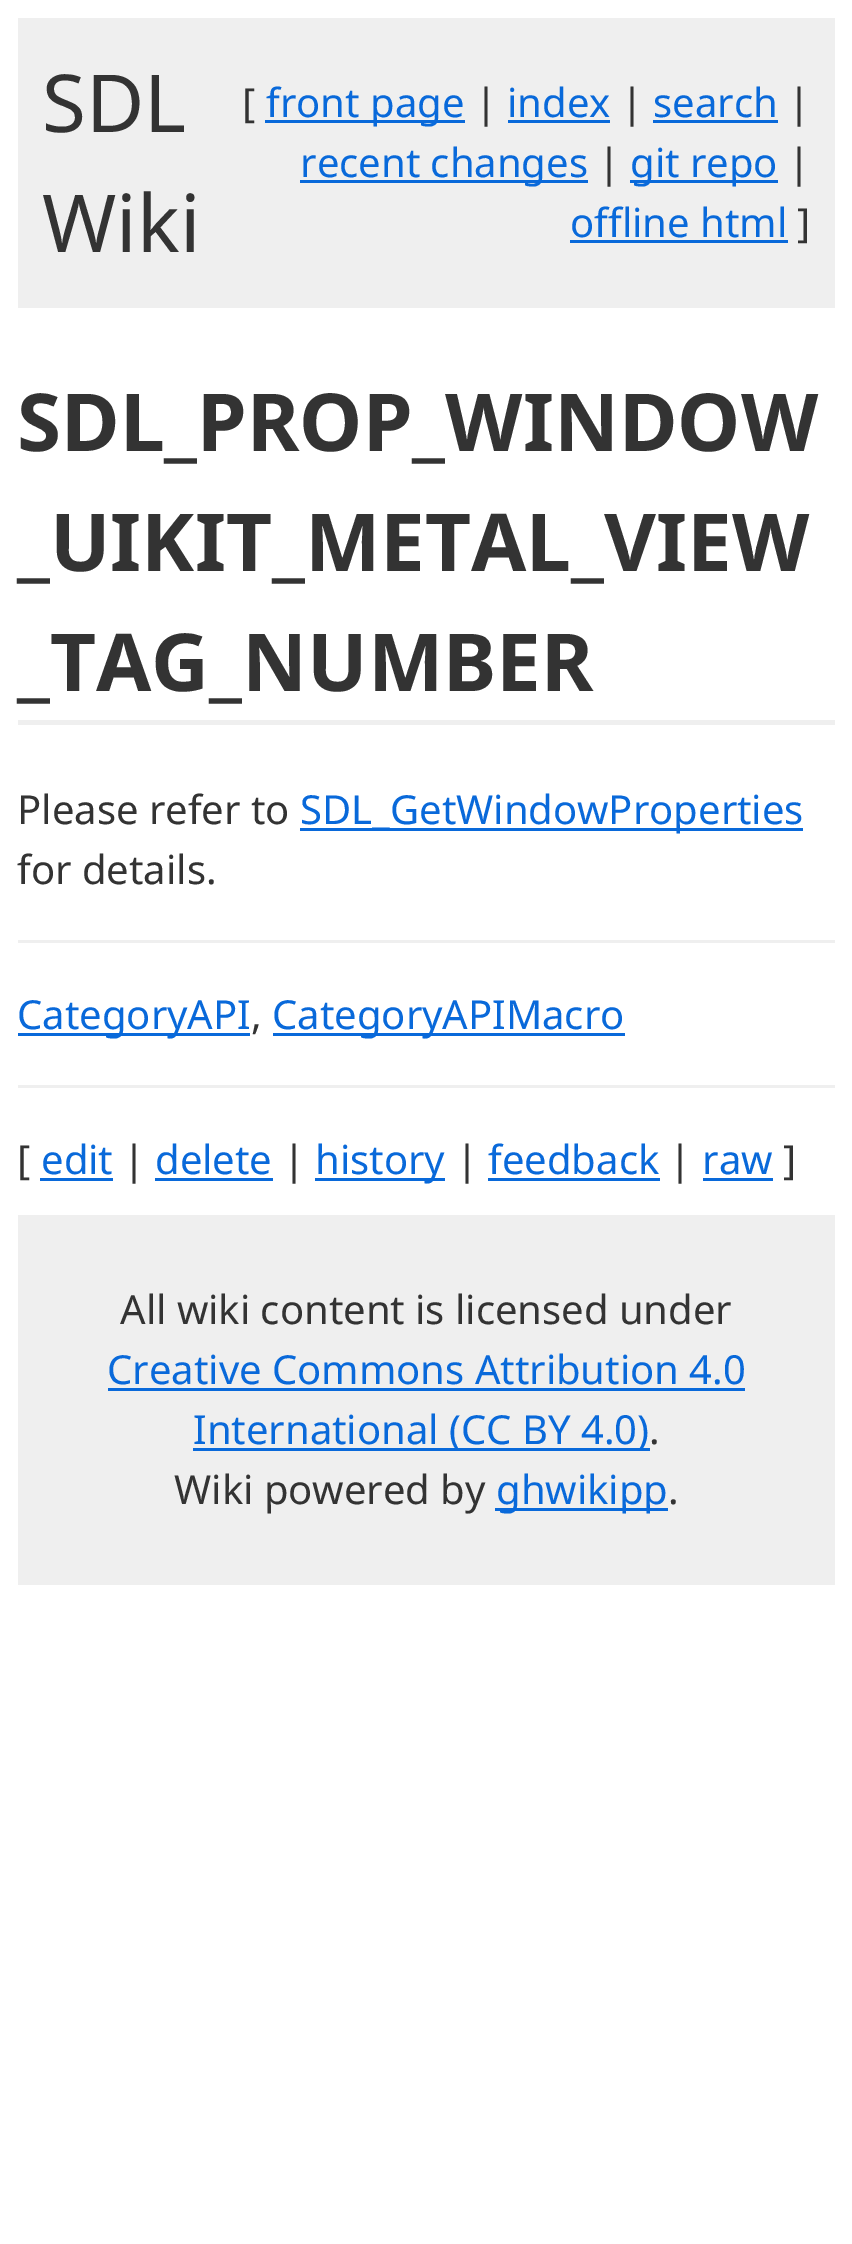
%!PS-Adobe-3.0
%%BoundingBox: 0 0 852 2244
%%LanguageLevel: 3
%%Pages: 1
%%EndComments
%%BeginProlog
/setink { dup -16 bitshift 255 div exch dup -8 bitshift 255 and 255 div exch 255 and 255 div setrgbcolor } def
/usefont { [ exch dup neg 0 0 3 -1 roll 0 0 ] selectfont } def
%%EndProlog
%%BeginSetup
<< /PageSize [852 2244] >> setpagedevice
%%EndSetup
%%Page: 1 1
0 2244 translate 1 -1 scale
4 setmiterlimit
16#FFFFFF setink
0 0 852 2244 rectfill
16#EFEFEF setink
18 18 817 290 rectfill
/NotoSans-Regular 80 usefont
16#333333 setink
42 132 moveto (SDL) show
42 252 moveto (Wiki) show
/NotoSans-Regular 40 usefont
242 117 moveto ([) show
16#0969DA setink
265 120 200 3 rectfill
266 117 moveto (front page) show
16#333333 setink
475 117 moveto (|) show
16#0969DA setink
507 117 moveto (index) show
508 120 102 3 rectfill
16#333333 setink
621 117 moveto (|) show
16#0969DA setink
653 117 moveto (search) show
653 120 125 3 rectfill
16#333333 setink
788 117 moveto (|) show
16#0969DA setink
300 180 288 3 rectfill
300 177 moveto (recent changes) show
16#333333 setink
598 177 moveto (|) show
16#0969DA setink
630 180 148 3 rectfill
630 177 moveto (git repo) show
16#333333 setink
788 177 moveto (|) show
16#0969DA setink
570 237 moveto (offline html) show
570 240 218 3 rectfill
16#333333 setink
797 237 moveto (]) show
16#EFEFEF setink
18 720 817 5 rectfill
/NotoSans-Bold 80 usefont
16#333333 setink
[
    [(SDL_PROP_WINDOW) 17 451]
    [(_UIKIT_METAL_VIEW) 17 571]
    [(_TAG_NUMBER) 17 691]
] { aload pop moveto show } forall
/NotoSans-Regular 40 usefont
17 824 moveto (Please refer to) show
16#0969DA setink
300 828 503 3 rectfill
300 824 moveto (SDL_GetWindowProperties) show
16#333333 setink
17 884 moveto (for details.) show
16#EFEFEF setink
18 940 817 3 rectfill
16#0969DA setink
18 1033 232 3 rectfill
17 1029 moveto (CategoryAPI) show
16#333333 setink
251 1029 moveto (,) show
16#0969DA setink
273 1033 352 3 rectfill
272 1029 moveto (CategoryAPIMacro) show
16#EFEFEF setink
18 1085 817 3 rectfill
16#333333 setink
17 1174 moveto ([) show
16#0969DA setink
41 1174 moveto (edit) show
40 1178 73 3 rectfill
16#333333 setink
123 1174 moveto (|) show
16#0969DA setink
155 1174 moveto (delete) show
155 1178 118 3 rectfill
16#333333 setink
283 1174 moveto (|) show
16#0969DA setink
315 1178 130 3 rectfill
315 1174 moveto (history) show
16#333333 setink
456 1174 moveto (|) show
16#0969DA setink
488 1174 moveto (feedback) show
488 1178 172 3 rectfill
16#333333 setink
669 1174 moveto (|) show
16#0969DA setink
702 1174 moveto (raw) show
703 1178 70 3 rectfill
16#333333 setink
783 1174 moveto (]) show
16#EFEFEF setink
18 1215 817 370 rectfill
16#333333 setink
120 1324 moveto (All wiki content is licensed under) show
16#0969DA setink
107 1384 moveto (Creative Commons Attribution 4.0) show
108 1388 637 3 rectfill
193 1448 457 3 rectfill
193 1444 moveto (International \(CC BY 4.0\)) show
16#333333 setink
649 1444 moveto (.) show
174 1504 moveto (Wiki powered by) show
16#0969DA setink
495 1508 173 3 rectfill
496 1504 moveto (ghwikipp) show
16#333333 setink
668 1504 moveto (.) show
showpage
%%EOF
